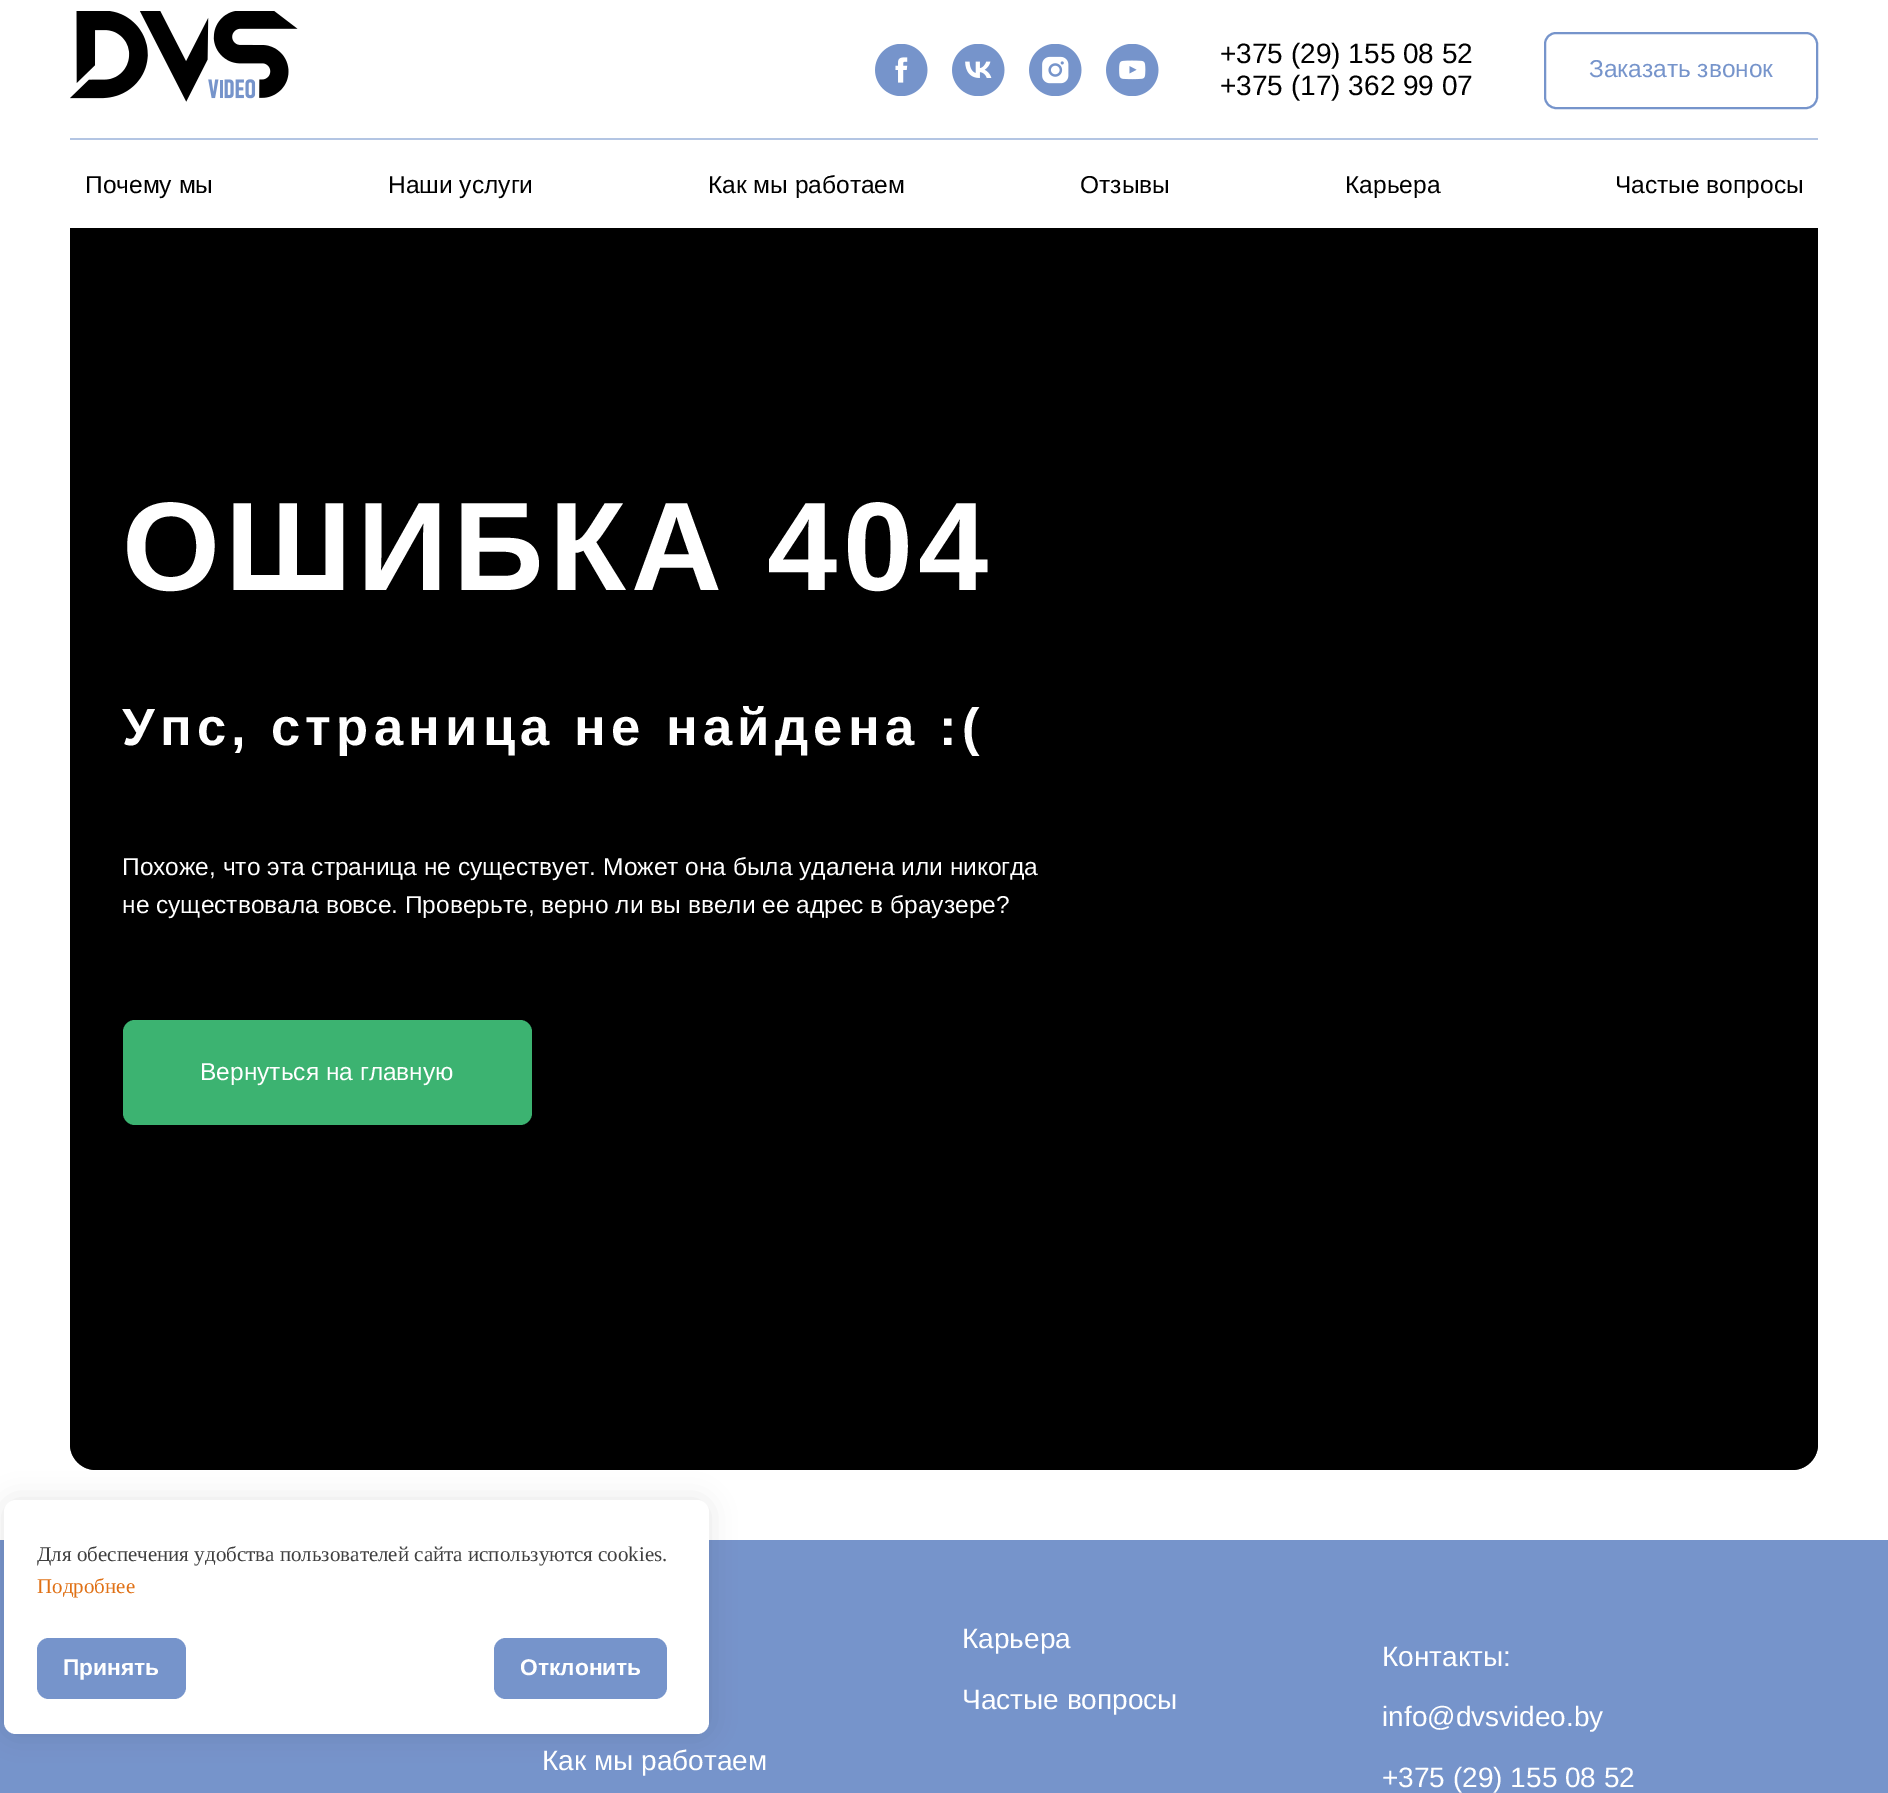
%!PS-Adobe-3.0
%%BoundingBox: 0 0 1888 1793
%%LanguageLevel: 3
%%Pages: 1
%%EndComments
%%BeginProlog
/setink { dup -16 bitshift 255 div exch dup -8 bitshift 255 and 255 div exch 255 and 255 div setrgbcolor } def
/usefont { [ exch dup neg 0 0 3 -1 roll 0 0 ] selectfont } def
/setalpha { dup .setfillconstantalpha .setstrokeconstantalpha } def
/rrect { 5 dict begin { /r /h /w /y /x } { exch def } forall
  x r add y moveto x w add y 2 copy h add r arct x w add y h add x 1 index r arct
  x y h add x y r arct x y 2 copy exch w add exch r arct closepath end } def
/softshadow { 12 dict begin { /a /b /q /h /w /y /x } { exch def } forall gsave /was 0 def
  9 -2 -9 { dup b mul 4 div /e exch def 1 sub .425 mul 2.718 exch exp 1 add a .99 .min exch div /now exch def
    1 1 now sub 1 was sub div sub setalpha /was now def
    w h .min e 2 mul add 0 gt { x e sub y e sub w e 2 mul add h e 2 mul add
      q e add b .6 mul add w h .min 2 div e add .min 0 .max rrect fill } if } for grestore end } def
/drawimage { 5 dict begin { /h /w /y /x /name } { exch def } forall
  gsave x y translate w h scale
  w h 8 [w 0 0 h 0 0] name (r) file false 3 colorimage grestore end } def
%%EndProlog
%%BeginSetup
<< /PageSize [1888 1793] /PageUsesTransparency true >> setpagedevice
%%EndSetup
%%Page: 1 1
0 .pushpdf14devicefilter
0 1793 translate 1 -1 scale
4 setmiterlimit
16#FFFFFF setink
0 0 1888 1793 rectfill
16#000000 setink
70 124 1748 1346 26 rrect fill
0.7 setalpha
70 124 1748 1346 26 rrect fill
1 setalpha
16#FFFFFF setink
70 124 1748 104 rectfill
(img1.raw) 70 11 228 91 drawimage
(img2.raw) 875 44 53 52 drawimage
(img3.raw) 952 44 53 52 drawimage
(img4.raw) 1029 44 53 52 drawimage
(img5.raw) 1106 44 53 52 drawimage
/LiberationSans-Regular 28 usefont
16#000000 setink
1220 63 moveto (+375 \(29\) 155 08 52) show
1220 95 moveto (+375 \(17\) 362 99 07) show
16#7694CB setink
2 setlinewidth
1545 33 272 75 11 rrect stroke
/LiberationSans-Regular 24.5 usefont
1589 77 moveto (Заказать звонок) show
16#B3C5E3 setink
70 138 1748 2 rectfill
16#000000 setink
[
    [(Почему мы) 85 193]
    [(Наши услуги) 388 193]
    [(Как мы работаем) 708 193]
    [(Отзывы) 1080 193]
    [(Карьера) 1345 193]
    [(Частые вопросы) 1615 193]
] { aload pop moveto show } forall
/LiberationSans-Bold 126 usefont
16#FFFFFF setink
122 590 moveto 5.25 0 (ОШИБКА 404) ashow
/LiberationSans-Bold 52.5 usefont
122 745 moveto 5.25 0 (Упс, страница не найдена :\() ashow
/LiberationSans-Regular 24.5 usefont
122 875 moveto (Похоже, что эта страница не существует. Может она была удалена или никогда) show
122 913 moveto (не существовала вовсе. Проверьте, верно ли вы ввели ее адрес в браузере?) show
16#3CB371 setink
123 1020 409 105 12 rrect fill
16#FFFFFF setink
200 1080 moveto (Вернуться на главную) show
16#7694CB setink
0 1540 1888 253 rectfill
16#000000 setink
4 1500 705 234 12 13 0.1 softshadow
16#FFFFFF setink
4 1500 705 234 12 rrect fill
/LiberationSerif-Regular 21 usefont
16#3F3F3F setink
37 1561 moveto (Для обеспечения удобства пользователей сайта используются cookies.) show
16#E07116 setink
37 1593 moveto (Подробнее) show
16#7694CB setink
37 1638 149 61 12 rrect fill
/LiberationSans-Bold 22.75 usefont
16#FFFFFF setink
63 1675 moveto (Принять) show
16#7694CB setink
494 1638 173 61 12 rrect fill
16#FFFFFF setink
520 1675 moveto (Отклонить) show
/LiberationSans-Regular 28 usefont
[
    [(Как мы работаем) 542 1770]
    [(Карьера) 962 1648]
    [(Частые вопросы) 962 1709]
    [(Контакты:) 1382 1666]
    [(info@dvsvideo.by) 1382 1726]
    [(+375 \(29\) 155 08 52) 1382 1787]
] { aload pop moveto show } forall
.poppdf14devicefilter showpage
%%EOF
